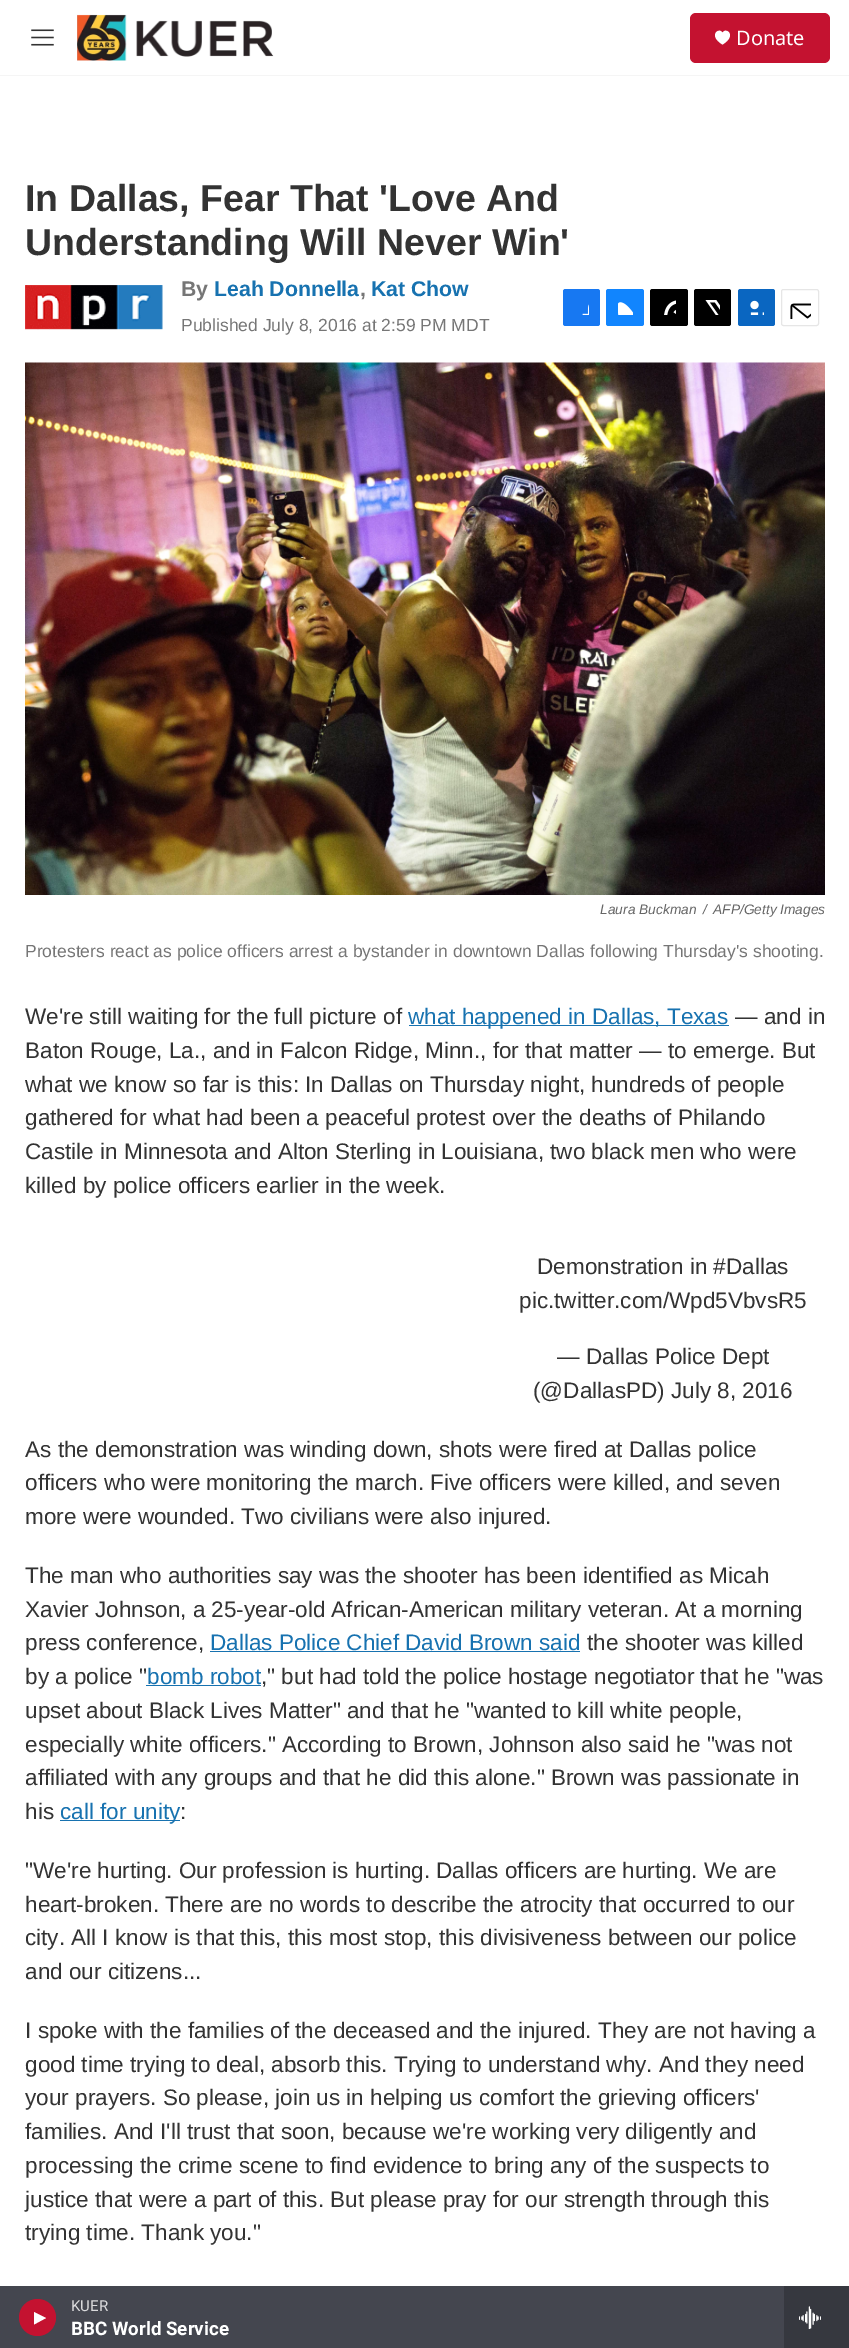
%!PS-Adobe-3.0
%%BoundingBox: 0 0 849 2348
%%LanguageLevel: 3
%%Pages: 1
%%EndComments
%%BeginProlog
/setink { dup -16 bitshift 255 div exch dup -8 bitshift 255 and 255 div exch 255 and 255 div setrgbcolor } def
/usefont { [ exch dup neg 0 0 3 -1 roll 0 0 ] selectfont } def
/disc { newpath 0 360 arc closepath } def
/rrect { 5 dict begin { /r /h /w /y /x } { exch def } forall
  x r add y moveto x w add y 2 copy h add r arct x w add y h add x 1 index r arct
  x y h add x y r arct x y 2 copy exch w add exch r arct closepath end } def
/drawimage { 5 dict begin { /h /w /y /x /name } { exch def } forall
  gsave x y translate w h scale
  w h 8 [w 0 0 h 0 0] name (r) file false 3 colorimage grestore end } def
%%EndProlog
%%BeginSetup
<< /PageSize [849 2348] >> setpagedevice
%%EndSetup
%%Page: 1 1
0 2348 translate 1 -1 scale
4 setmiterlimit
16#FFFFFF setink
0 0 849 2348 rectfill
16#F5F5F5 setink
0 75 849 1 rectfill
(img1.raw) 31 29 23 17 drawimage
(img2.raw) 77 14 197 47 drawimage
16#C41230 setink
690 13 140 50 6 rrect fill
16#FFFFFF setink
722.5 33 moveto 720 26.5 707 35 722.5 44.5 curveto 738 35 725 26.5 722.5 33 curveto closepath fill
/NotoSans-Regular 20 usefont
736 45 moveto (Donate) show
16#44464F setink
0 2286 784 62 rectfill
16#C41230 setink
37.5 2317.5 18.5 disc fill
16#FFFFFF setink
34 2312 moveto 46 2318 lineto 34 2324.5 lineto closepath fill
/Roboto-Regular 15 usefont
16#DADADC setink
71 2311 moveto (KUER) show
/Roboto-Bold 18.75 usefont
16#FFFFFF setink
71 2335 moveto (BBC World Service) show
16#36383F setink
784 2286 65 62 rectfill
(img3.raw) 799 2306 22 23 drawimage
/LiberationSans-Bold 37.5 usefont
16#333333 setink
25 211 moveto (In Dallas, Fear That 'Love And) show
25 255 moveto (Understanding Will Never Win') show
(img4.raw) 25 285 138 45 drawimage
/LiberationSans-Bold 21.25 usefont
16#767676 setink
181 296 moveto (By) show
16#1772B0 setink
214 296 moveto (Leah Donnella) show
16#767676 setink
360 296 moveto (,) show
16#1772B0 setink
371 296 moveto (Kat Chow) show
/LiberationSans-Regular 17.5 usefont
16#767676 setink
181 331 moveto (Published July 8, 2016 at 2:59 PM MDT) show
16#1778F2 setink
563 289 37 37 2.5 rrect fill
(img5.raw) 582 304 7 11 drawimage
16#1185FE setink
606 289 38 37 2.5 rrect fill
(img6.raw) 618 302 15 13 drawimage
16#000000 setink
650 289 38 37 2.5 rrect fill
(img7.raw) 664 300 12 15 drawimage
694 289 37 37 2.5 rrect fill
(img8.raw) 705 300 15 15 drawimage
16#0A66C1 setink
738 289 37 37 2.5 rrect fill
(img9.raw) 750 300 14 15 drawimage
16#E6E6E6 setink
781.5 289.5 37 36 2 rrect stroke
(img10.raw) 790 303 21 16 drawimage
(img11.raw) 25 362 800 533 drawimage
/LiberationSans-Italic 13.75 usefont
16#666666 setink
[
    [(Laura Buckman) 600 914]
    [(/) 703 914]
    [(AFP/Getty Images) 713 914]
] { aload pop moveto show } forall
/LiberationSans-Regular 17.5 usefont
16#767676 setink
25 957 moveto (Protesters react as police officers arrest a bystander in downtown Dallas following Thursday's shooting.) show
/LiberationSans-Regular 22.5 usefont
16#333333 setink
25 1024 moveto (We're still waiting for the full picture of) show
16#1772B0 setink
409 1025 320 1 rectfill
408 1024 moveto (what happened in Dallas, Texas) show
16#333333 setink
[
    [(— and in) 735 1024]
    [(Baton Rouge, La., and in Falcon Ridge, Minn., for that matter — to emerge. But) 25 1058]
    [(what we know so far is this: In Dallas on Thursday night, hundreds of people) 25 1092]
    [(gathered for what had been a peaceful protest over the deaths of Philando) 25 1125]
    [(Castile in Minnesota and Alton Sterling in Louisiana, two black men who were) 25 1159]
    [(killed by police officers earlier in the week.) 25 1193]
    [(Demonstration in #Dallas) 537 1274]
    [(pic.twitter.com/Wpd5VbvsR5) 519 1308]
    [(— Dallas Police Dept) 557 1364]
    [(\(@DallasPD\) July 8, 2016) 533 1398]
    [(As the demonstration was winding down, shots were fired at Dallas police) 25 1457]
    [(officers who were monitoring the march. Five officers were killed, and seven) 25 1490]
    [(more were wounded. Two civilians were also injured.) 25 1524]
    [(The man who authorities say was the shooter has been identified as Micah) 25 1583]
    [(Xavier Johnson, a 25-year-old African-American military veteran. At a morning) 25 1617]
    [(press conference,) 25 1650]
] { aload pop moveto show } forall
16#1772B0 setink
210 1650 moveto (Dallas Police Chief David Brown said) show
210 1651 370 1 rectfill
16#333333 setink
587 1650 moveto (the shooter was killed) show
25 1684 moveto (by a police ") show
16#1772B0 setink
147 1684 moveto (bomb robot) show
146 1685 115 1 rectfill
16#333333 setink
[
    [(," but had told the police hostage negotiator that he "was) 261 1684]
    [(upset about Black Lives Matter" and that he "wanted to kill white people,) 25 1718]
    [(especially white officers." According to Brown, Johnson also said he "was not) 25 1752]
    [(affiliated with any groups and that he did this alone." Brown was passionate in) 25 1785]
    [(his) 25 1819]
] { aload pop moveto show } forall
16#1772B0 setink
60 1820 120 1 rectfill
60 1819 moveto (call for unity) show
16#333333 setink
[
    [(:) 180 1819]
    [("We're hurting. Our profession is hurting. Dallas officers are hurting. We are) 25 1878]
    [(heart-broken. There are no words to describe the atrocity that occurred to our) 25 1912]
    [(city. All I know is that this, this most stop, this divisiveness between our police) 25 1945]
    [(and our citizens...) 25 1979]
    [(I spoke with the families of the deceased and the injured. They are not having a) 25 2038]
    [(good time trying to deal, absorb this. Trying to understand why. And they need) 25 2072]
    [(your prayers. So please, join us in helping us comfort the grieving officers') 25 2105]
    [(families. And I'll trust that soon, because we're working very diligently and) 25 2139]
    [(processing the crime scene to find evidence to bring any of the suspects to) 25 2173]
    [(justice that were a part of this. But please pray for our strength through this) 25 2207]
    [(trying time. Thank you.") 25 2240]
] { aload pop moveto show } forall
showpage
%%EOF
